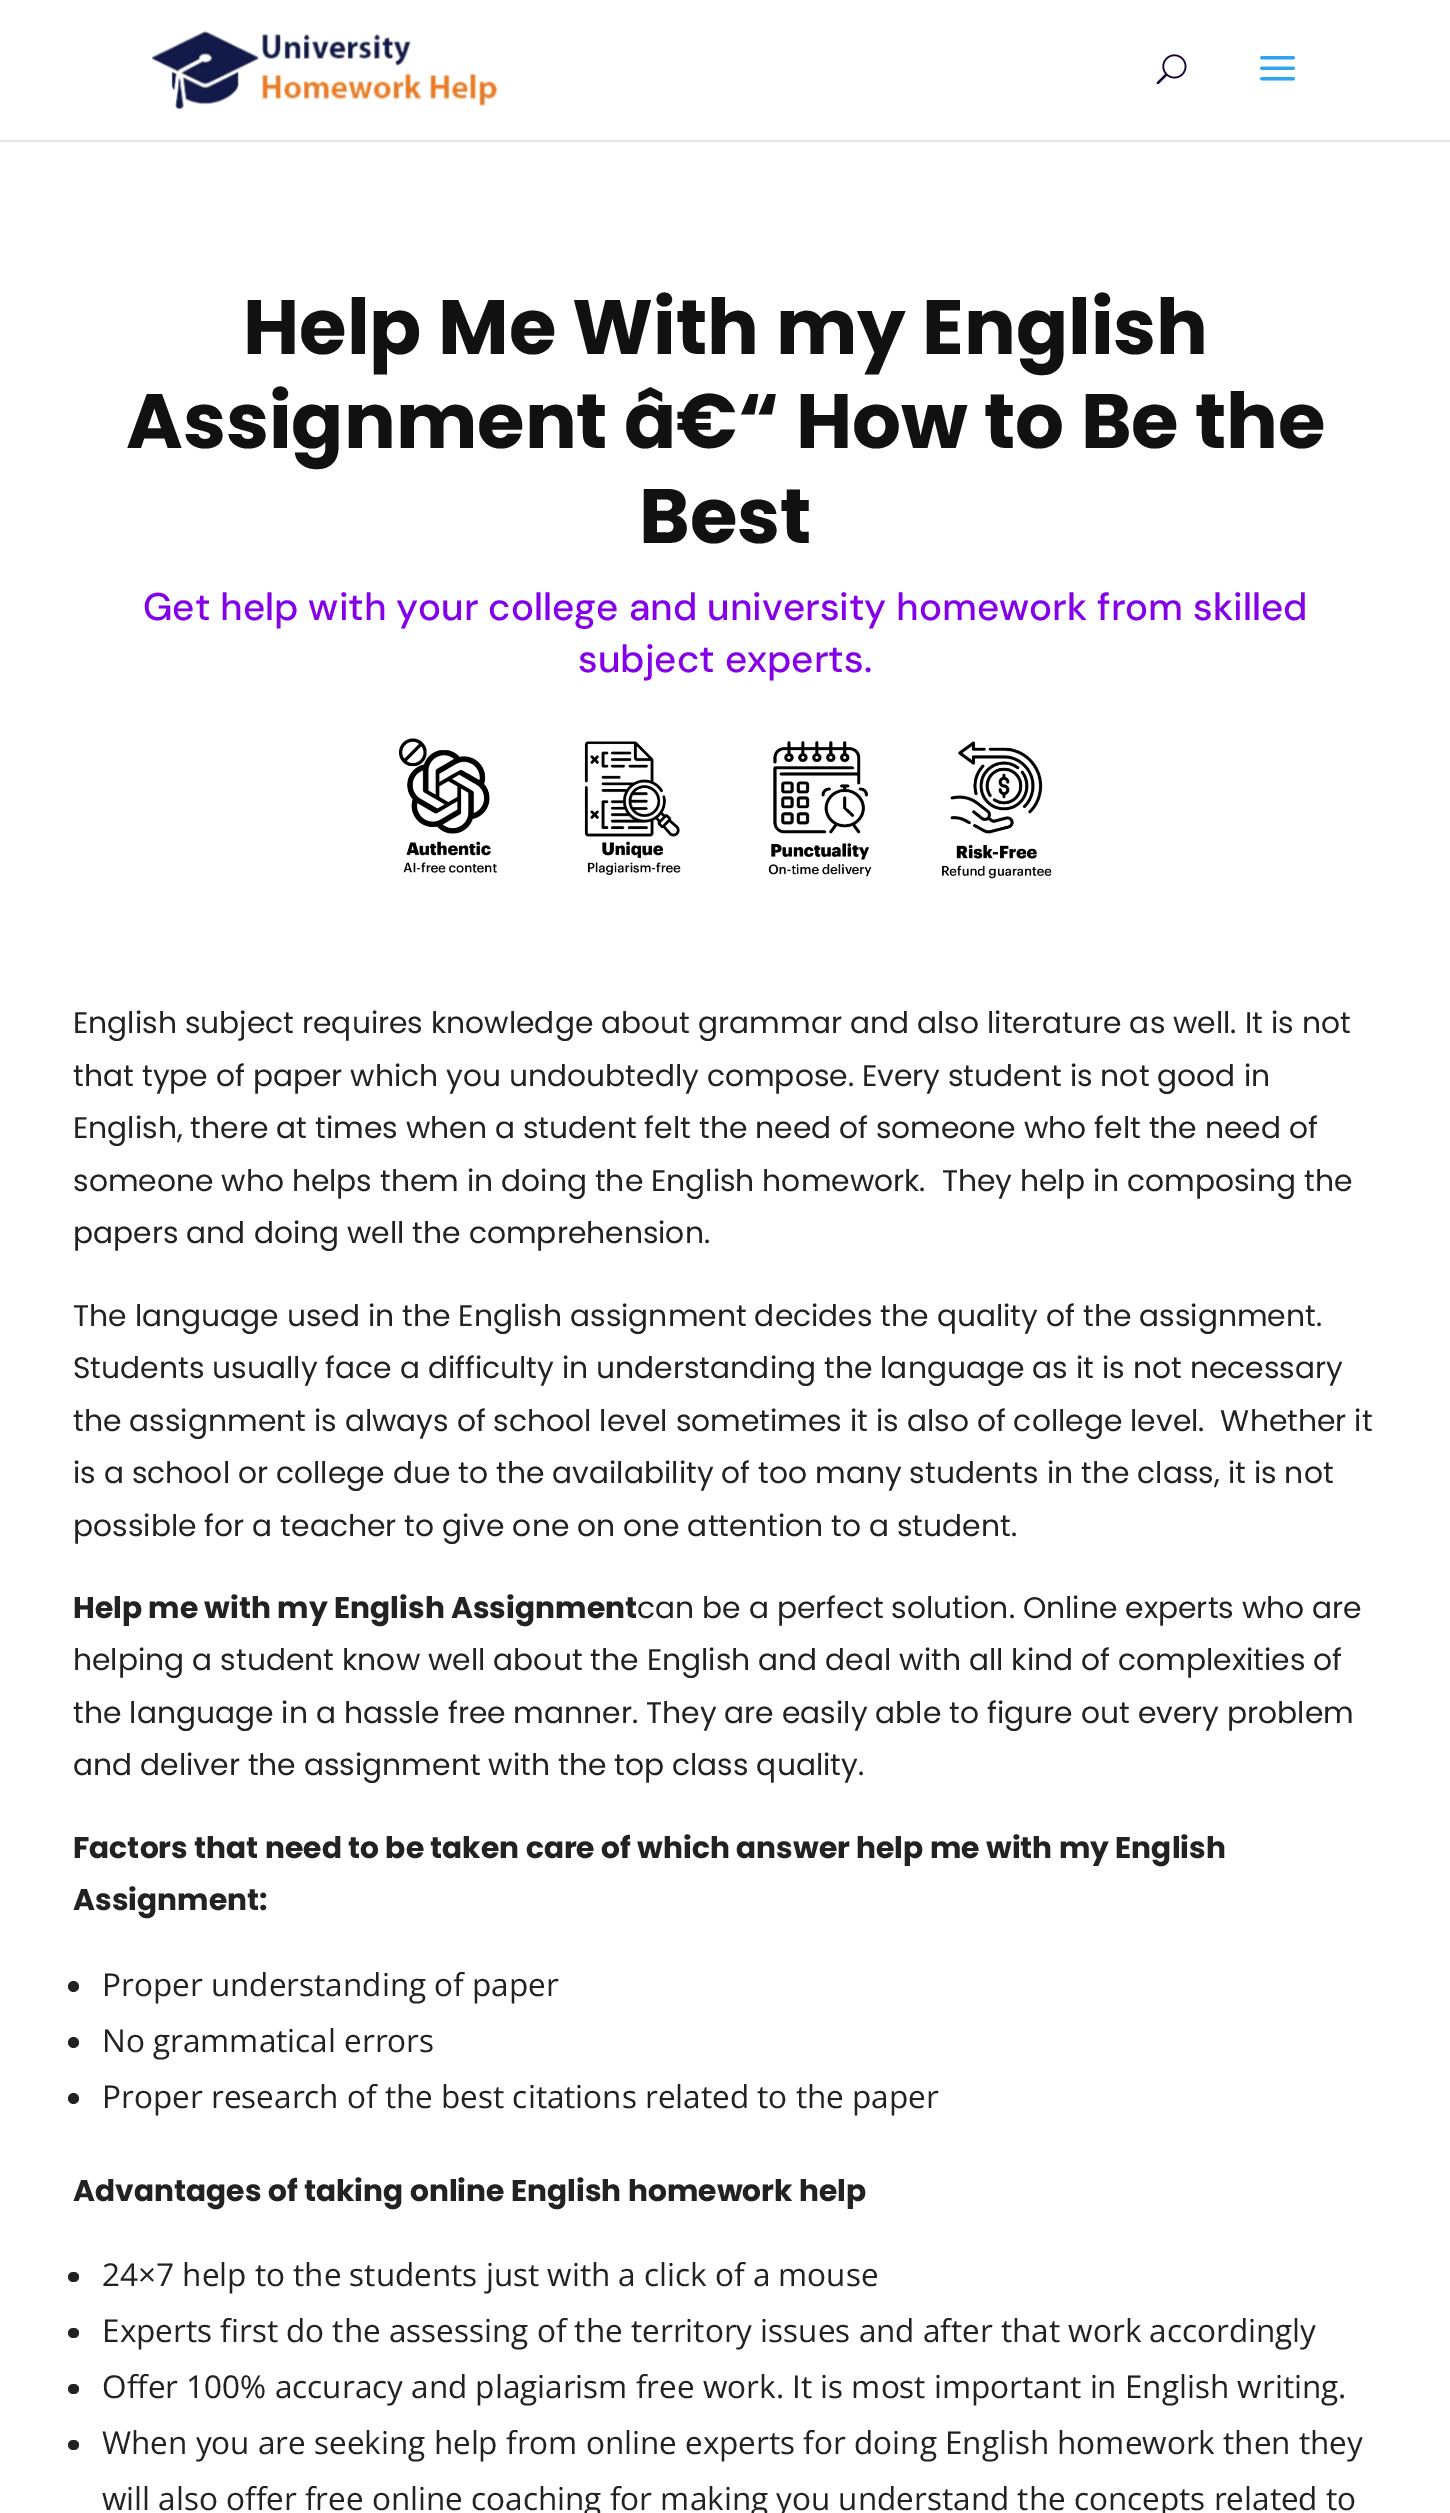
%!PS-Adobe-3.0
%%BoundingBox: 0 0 1450 2513
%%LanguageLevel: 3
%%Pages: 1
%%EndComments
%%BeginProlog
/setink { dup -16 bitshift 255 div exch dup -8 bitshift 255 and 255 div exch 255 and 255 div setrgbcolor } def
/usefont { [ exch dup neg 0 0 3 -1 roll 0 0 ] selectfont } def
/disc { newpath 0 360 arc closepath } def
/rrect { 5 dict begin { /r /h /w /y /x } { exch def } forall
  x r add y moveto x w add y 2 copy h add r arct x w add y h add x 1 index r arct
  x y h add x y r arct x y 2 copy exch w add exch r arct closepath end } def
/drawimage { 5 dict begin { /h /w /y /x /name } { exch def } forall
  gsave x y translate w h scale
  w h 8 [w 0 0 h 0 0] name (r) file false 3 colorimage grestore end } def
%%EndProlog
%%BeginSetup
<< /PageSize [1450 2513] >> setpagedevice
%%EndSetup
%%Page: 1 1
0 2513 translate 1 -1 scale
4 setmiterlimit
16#FFFFFF setink
0 0 1450 2513 rectfill
16#E6E6E6 setink
0 140 moveto 0 142 lineto 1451 142 lineto 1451 2 lineto 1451 140 lineto closepath fill
(img1.raw) 152 31 346 78 drawimage
(img2.raw) 1156 54 31 31 drawimage
(img3.raw) 1260 56 35 25 drawimage
/Poppins-Bold 77 usefont
16#111111 setink
[
    [(Help Me With my English) 243 354]
    [(Assignment â€“ How to Be the) 126 448]
    [(Best) 639 543]
] { aload pop moveto show } forall
/DMSans-Medium 38.5 usefont
16#8300E9 setink
143 620 moveto (Get help with your college and university homework from skilled) show
578 672 moveto (subject experts.) show
(img4.raw) 399 738 653 141 drawimage
/Poppins-Regular 29.75 usefont
16#222222 setink
[
    [(English subject requires knowledge about grammar and also literature as well. It is not) 73 1033]
    [(that type of paper which you undoubtedly compose. Every student is not good in) 73 1086]
    [(English, there at times when a student felt the need of someone who felt the need of) 73 1138]
    [(someone who helps them in doing the English homework.  They help in composing the) 73 1191]
    [(papers and doing well the comprehension.) 73 1243]
    [(The language used in the English assignment decides the quality of the assignment.) 73 1326]
    [(Students usually face a difficulty in understanding the language as it is not necessary) 73 1378]
    [(the assignment is always of school level sometimes it is also of college level.  Whether it) 73 1431]
    [(is a school or college due to the availability of too many students in the class, it is not) 73 1483]
    [(possible for a teacher to give one on one attention to a student.) 73 1536]
] { aload pop moveto show } forall
/Poppins-Bold 29.75 usefont
73 1618 moveto (Help me with my English Assignment) show
/Poppins-Regular 29.75 usefont
[
    [(can be a perfect solution. Online experts who are) 637 1618]
    [(helping a student know well about the English and deal with all kind of complexities of) 73 1670]
    [(the language in a hassle free manner. They are easily able to figure out every problem) 73 1723]
    [(and deliver the assignment with the top class quality.) 73 1775]
] { aload pop moveto show } forall
/Poppins-Bold 29.75 usefont
73 1858 moveto (Factors that need to be taken care of which answer help me with my English) show
73 1910 moveto (Assignment:) show
73.5 1986.5 5.5 disc fill
/OpenSans-Regular 31.5 usefont
102 1996 moveto (Proper understanding of paper) show
73.5 2042.5 5.5 disc fill
102 2052 moveto (No grammatical errors) show
73.5 2098.5 5.5 disc fill
102 2108 moveto (Proper research of the best citations related to the paper) show
/Poppins-Bold 29.75 usefont
73 2201 moveto (Advantages of taking online English homework help) show
68 2272 11 10 5 rrect fill
/OpenSans-Regular 31.5 usefont
102 2286 moveto (24×7 help to the students just with a click of a mouse) show
68 2328 11 10 5 rrect fill
102 2342 moveto (Experts first do the assessing of the territory issues and after that work accordingly) show
68 2384 11 10 5 rrect fill
102 2398 moveto (Offer 100% accuracy and plagiarism free work. It is most important in English writing.) show
68 2440 11 10 5 rrect fill
102 2454 moveto (When you are seeking help from online experts for doing English homework then they) show
102 2510 moveto (will also offer free online coaching for making you understand the concepts related to) show
showpage
%%EOF
